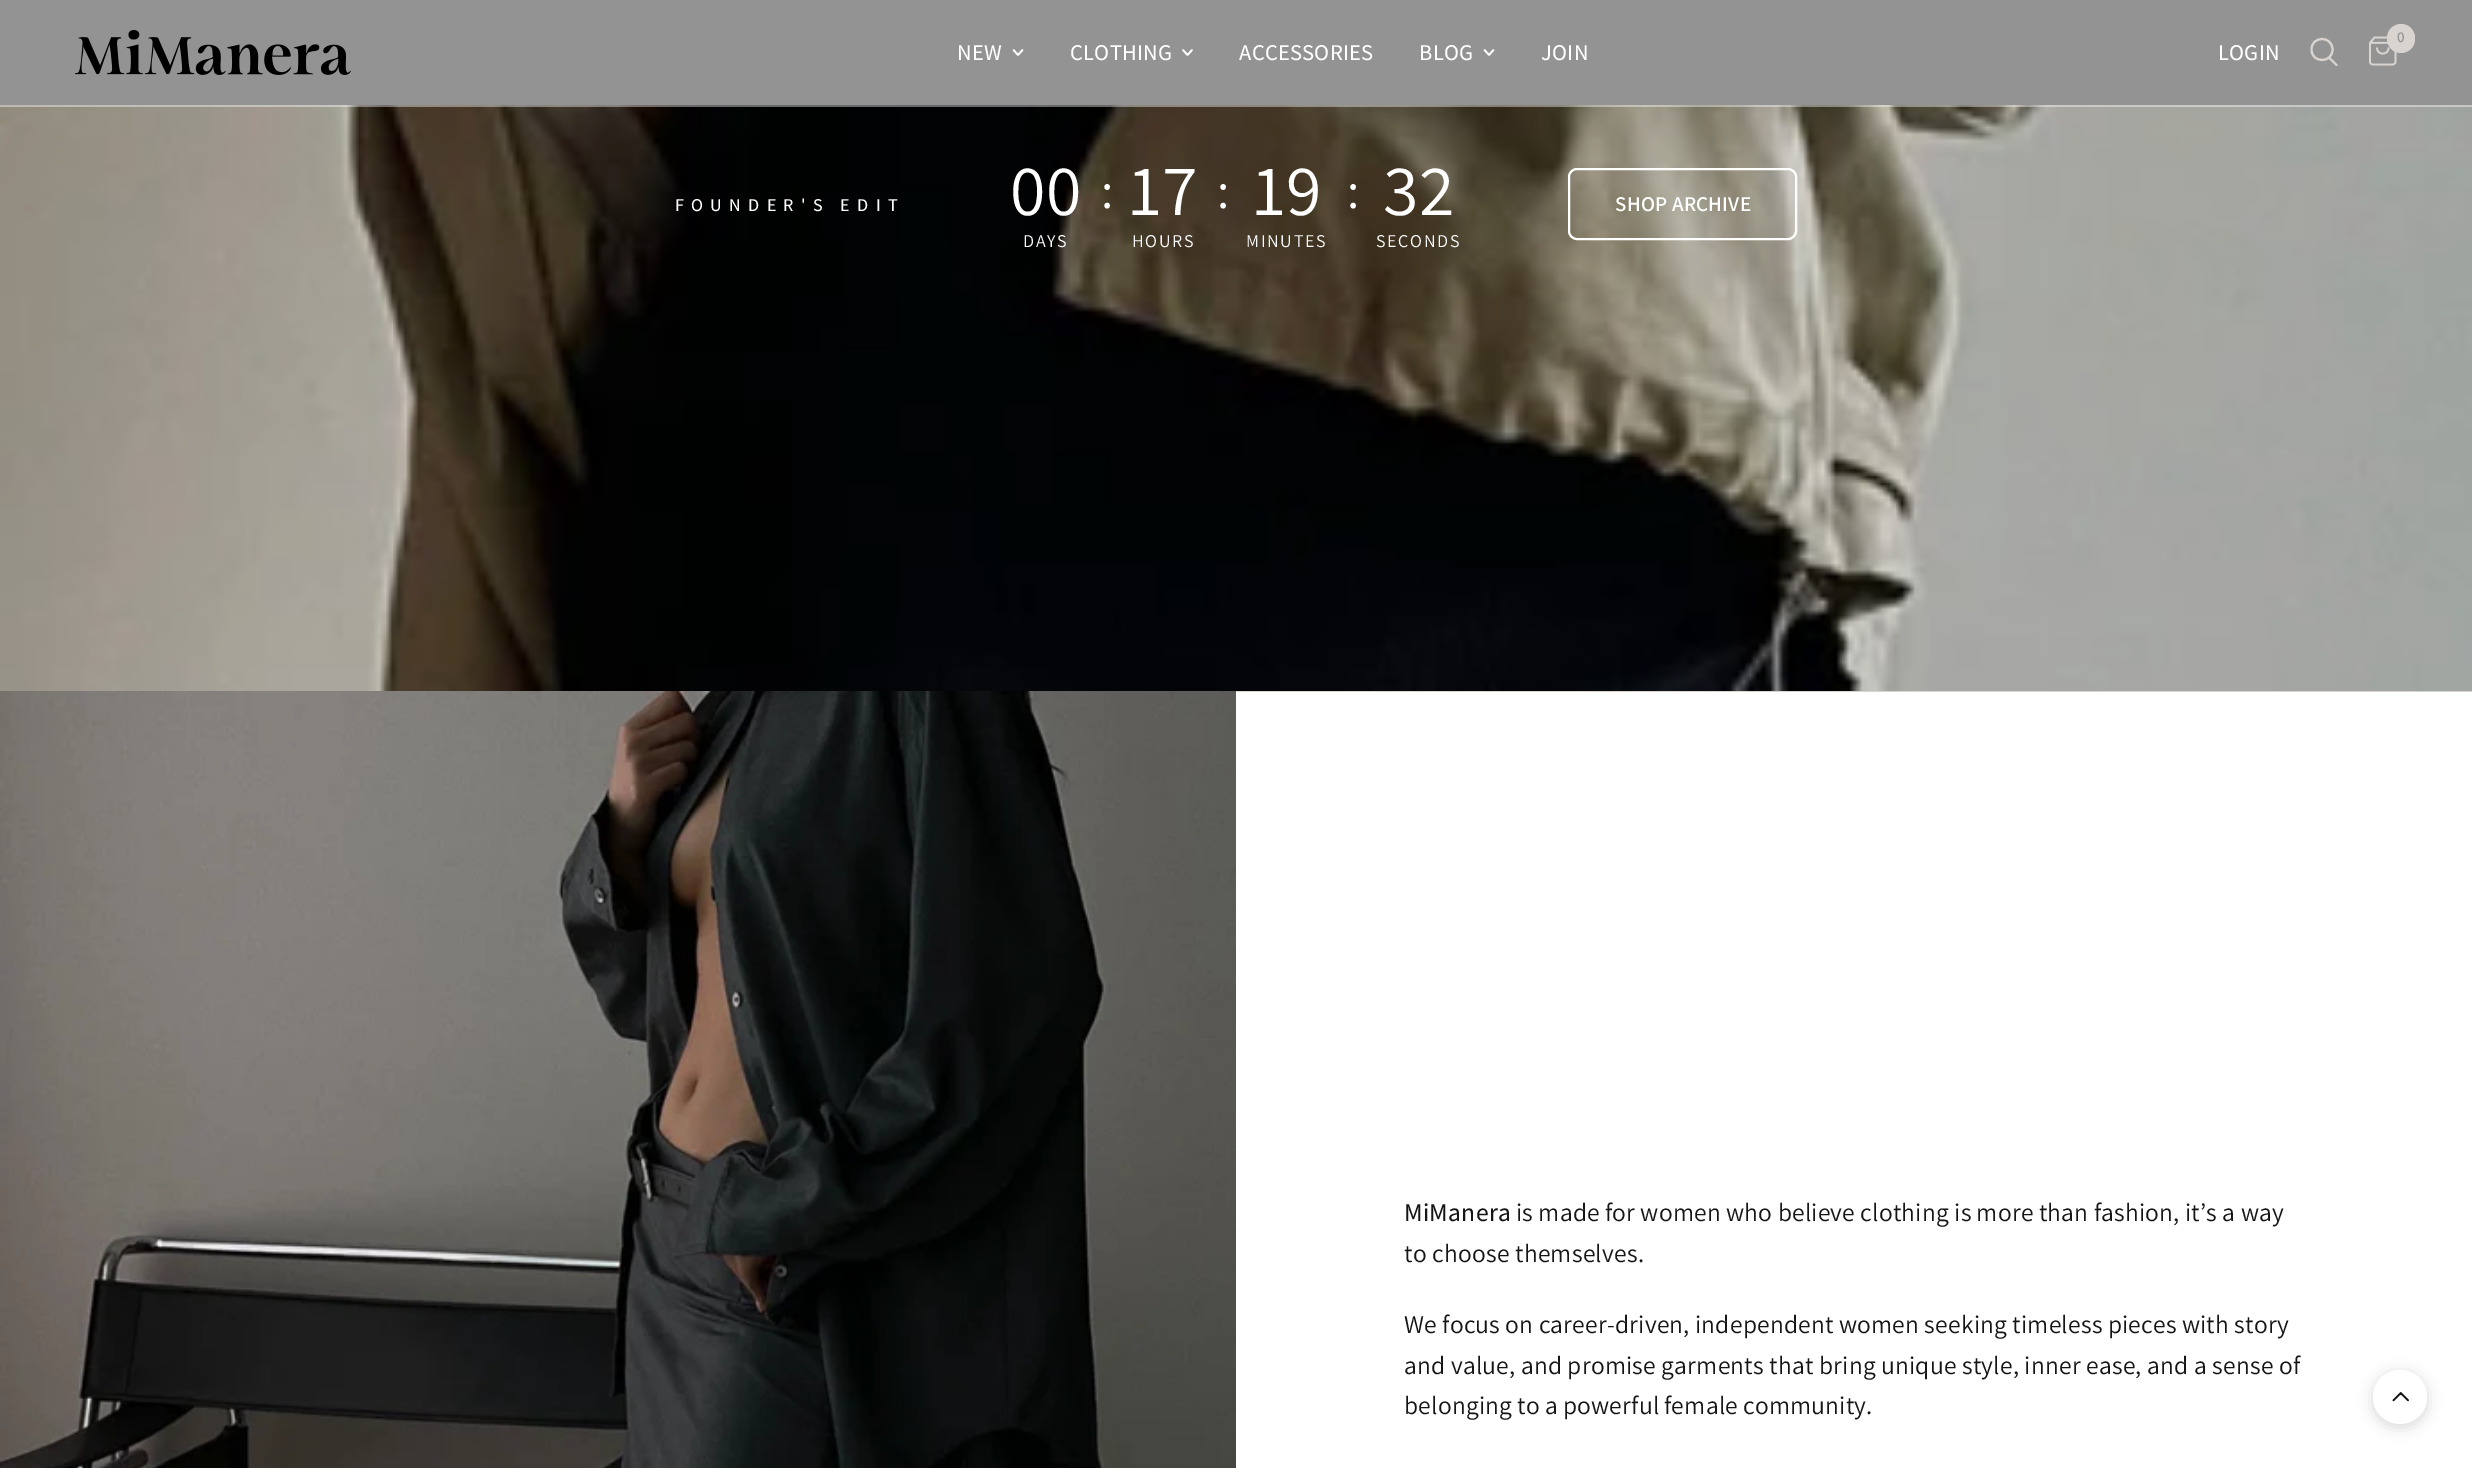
%!PS-Adobe-3.0
%%BoundingBox: 0 0 2472 1468
%%LanguageLevel: 3
%%Pages: 1
%%EndComments
%%BeginProlog
/setink { dup -16 bitshift 255 div exch dup -8 bitshift 255 and 255 div exch 255 and 255 div setrgbcolor } def
/usefont { [ exch dup neg 0 0 3 -1 roll 0 0 ] selectfont } def
/setalpha { dup .setfillconstantalpha .setstrokeconstantalpha } def
/disc { newpath 0 360 arc closepath } def
/rrect { 5 dict begin { /r /h /w /y /x } { exch def } forall
  x r add y moveto x w add y 2 copy h add r arct x w add y h add x 1 index r arct
  x y h add x y r arct x y 2 copy exch w add exch r arct closepath end } def
/softshadow { 12 dict begin { /a /b /q /h /w /y /x } { exch def } forall gsave /was 0 def
  9 -2 -9 { dup b mul 4 div /e exch def 1 sub .425 mul 2.718 exch exp 1 add a .99 .min exch div /now exch def
    1 1 now sub 1 was sub div sub setalpha /was now def
    w h .min e 2 mul add 0 gt { x e sub y e sub w e 2 mul add h e 2 mul add
      q e add b .6 mul add w h .min 2 div e add .min 0 .max rrect fill } if } for grestore end } def
/drawimage { 5 dict begin { /h /w /y /x /name } { exch def } forall
  gsave x y translate w h scale
  w h 8 [w 0 0 h 0 0] name (r) file false 3 colorimage grestore end } def
%%EndProlog
%%BeginSetup
<< /PageSize [2472 1468] /PageUsesTransparency true >> setpagedevice
%%EndSetup
%%Page: 1 1
0 .pushpdf14devicefilter
0 1468 translate 1 -1 scale
4 setmiterlimit
16#FFFFFF setink
0 0 2472 1468 rectfill
(img3.raw) 0 105 2472 586 drawimage
0.4 setalpha
0 105 2472 2 rectfill
1 setalpha
16#939393 setink
0 0 2472 105 rectfill
(img1.raw) 75 30 276 45 drawimage
/Assistant-Medium 22.5 usefont
16#FFFFFF setink
957 60 moveto 0.25 0 (NEW) ashow
1.7 setlinewidth
1 setlinecap
1 setlinejoin
1022.5 50 moveto 1018 55 lineto 1013.5 50 lineto stroke
1070 60 moveto 0.25 0 (CLOTHING) ashow
1192 50 moveto 1187.5 55 lineto 1183 50 lineto stroke
1239 60 moveto 0.25 0 (ACCESSORIES) ashow
1419 60 moveto 0.25 0 (BLOG) ashow
1493.5 50 moveto 1489 55 lineto 1484.5 50 lineto stroke
1541 60 moveto 0.25 0 (JOIN) ashow
2218 60 moveto 0.25 0 (LOGIN) ashow
16#DAD4D0 setink
2.1 setlinewidth
2329.5 58 moveto 2336.5 65 lineto 2332.5 49.5 moveto 2332.5 63.5 2311.5 63.5 2311.5 49.5 curveto 2311.5 35.5 2332.5 35.5 2332.5 49.5 curveto closepath stroke
(img2.raw) 2369 36 28 30 drawimage
2387 24 28 29 14 rrect fill
/Assistant-SemiBold 15 usefont
16#939393 setink
2397 42 moveto 0.25 0 (0) ashow
16#DAD4D0 setink
1236 691 1236 1 rectfill
/Assistant-Medium 18 usefont
16#FFFFFF setink
675 211 moveto 7.25 0 (FOUNDER'S EDIT) ashow
/Assistant-Regular 72 usefont
1010 215 moveto 0.25 0 (00) ashow
/Assistant-Regular 18 usefont
1023 247 moveto 1.75 0 (DAYS) ashow
/Assistant-Regular 51 usefont
1101 208 moveto 0.25 0 (:) ashow
/Assistant-Regular 72 usefont
1129 215 moveto 0.25 0 (17) ashow
/Assistant-Regular 18 usefont
1132 247 moveto 1.75 0 (HOURS) ashow
/Assistant-Regular 51 usefont
1217 208 moveto 0.25 0 (:) ashow
/Assistant-Regular 72 usefont
1253 215 moveto 0.25 0 (19) ashow
/Assistant-Regular 18 usefont
1246 247 moveto 1.75 0 (MINUTES) ashow
/Assistant-Regular 51 usefont
1347 208 moveto 0.25 0 (:) ashow
/Assistant-Regular 72 usefont
1383 215 moveto 0.25 0 (32) ashow
/Assistant-Regular 18 usefont
1376 247 moveto 1.75 0 (SECONDS) ashow
2 setlinewidth
0 setlinecap
0 setlinejoin
1569 169 227 70 8 rrect stroke
/Assistant-SemiBold 21 usefont
1615 211 moveto 0.25 0 (SHOP ARCHIVE) ashow
(img4.raw) 0 691 1236 777 drawimage
/Assistant-Medium 25.5 usefont
16#151515 setink
1404 1221 moveto 0.25 0 (MiManera) ashow
/Assistant-Regular 25.5 usefont
1516 1221 moveto -0.25 0 32 0.25 0 (is made for women who believe clothing is more than fashion, it’s a way) awidthshow
1404 1262 moveto 0.25 0 (to choose themselves.) ashow
1404 1333 moveto -0.25 0 32 0.25 0 (We focus on career-driven, independent women seeking timeless pieces with story) awidthshow
1404 1374 moveto -0.1 0 32 0.25 0 (and value, and promise garments that bring unique style, inner ease, and a sense of) awidthshow
1404 1414 moveto -0.5 0 32 0.25 0 (belonging to a powerful female community.) awidthshow
16#000000 setink
2373 1373 54 54 27 7.5 0.15 softshadow
16#FFFFFF setink
2400 1397 27 disc fill
(img5.raw) 2392 1392 17 10 drawimage
.poppdf14devicefilter showpage
%%EOF
